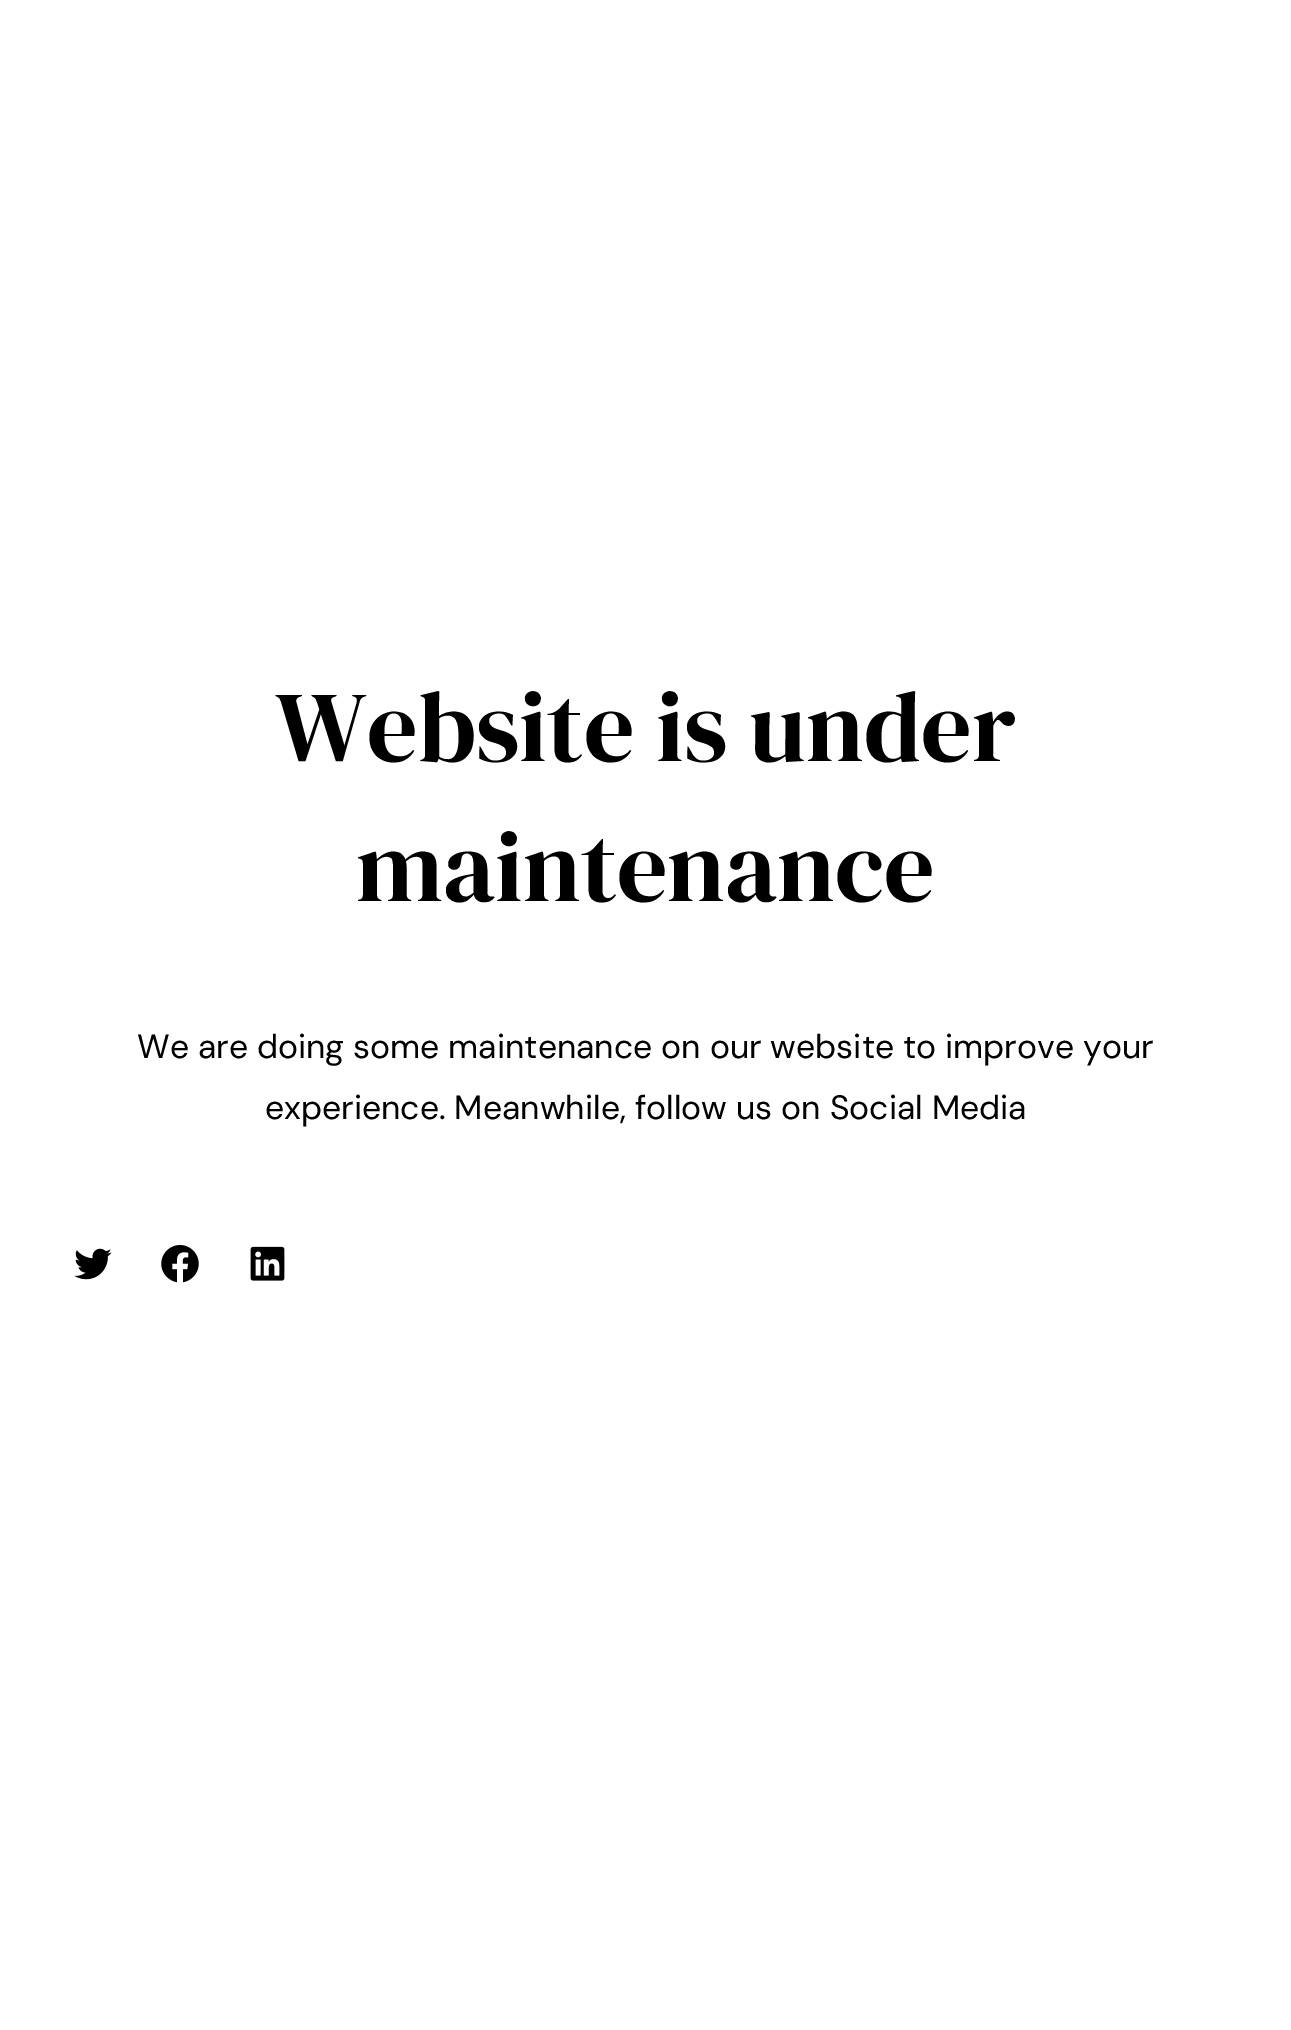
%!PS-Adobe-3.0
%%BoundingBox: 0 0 1291 2030
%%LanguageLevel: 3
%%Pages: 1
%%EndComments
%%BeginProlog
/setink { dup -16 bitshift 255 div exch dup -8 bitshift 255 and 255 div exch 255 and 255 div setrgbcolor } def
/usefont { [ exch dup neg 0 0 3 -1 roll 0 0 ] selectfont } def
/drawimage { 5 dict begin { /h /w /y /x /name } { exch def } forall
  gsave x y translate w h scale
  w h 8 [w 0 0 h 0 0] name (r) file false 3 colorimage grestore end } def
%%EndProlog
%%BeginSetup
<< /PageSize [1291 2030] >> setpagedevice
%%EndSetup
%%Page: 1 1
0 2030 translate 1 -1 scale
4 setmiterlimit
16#FFFFFF setink
0 0 1291 2030 rectfill
/DMSerifDisplay-Regular 100 usefont
16#000000 setink
275 761 moveto (Website is under) show
356 901 moveto (maintenance) show
/DMSans-Regular 33.75 usefont
137 1058 moveto (We are doing some maintenance on our website to improve your) show
265 1119 moveto (experience. Meanwhile, follow us on Social Media) show
(img1.raw) 74 1248 38 32 drawimage
(img2.raw) 161 1245 38 38 drawimage
(img3.raw) 250 1246 35 35 drawimage
showpage
%%EOF
